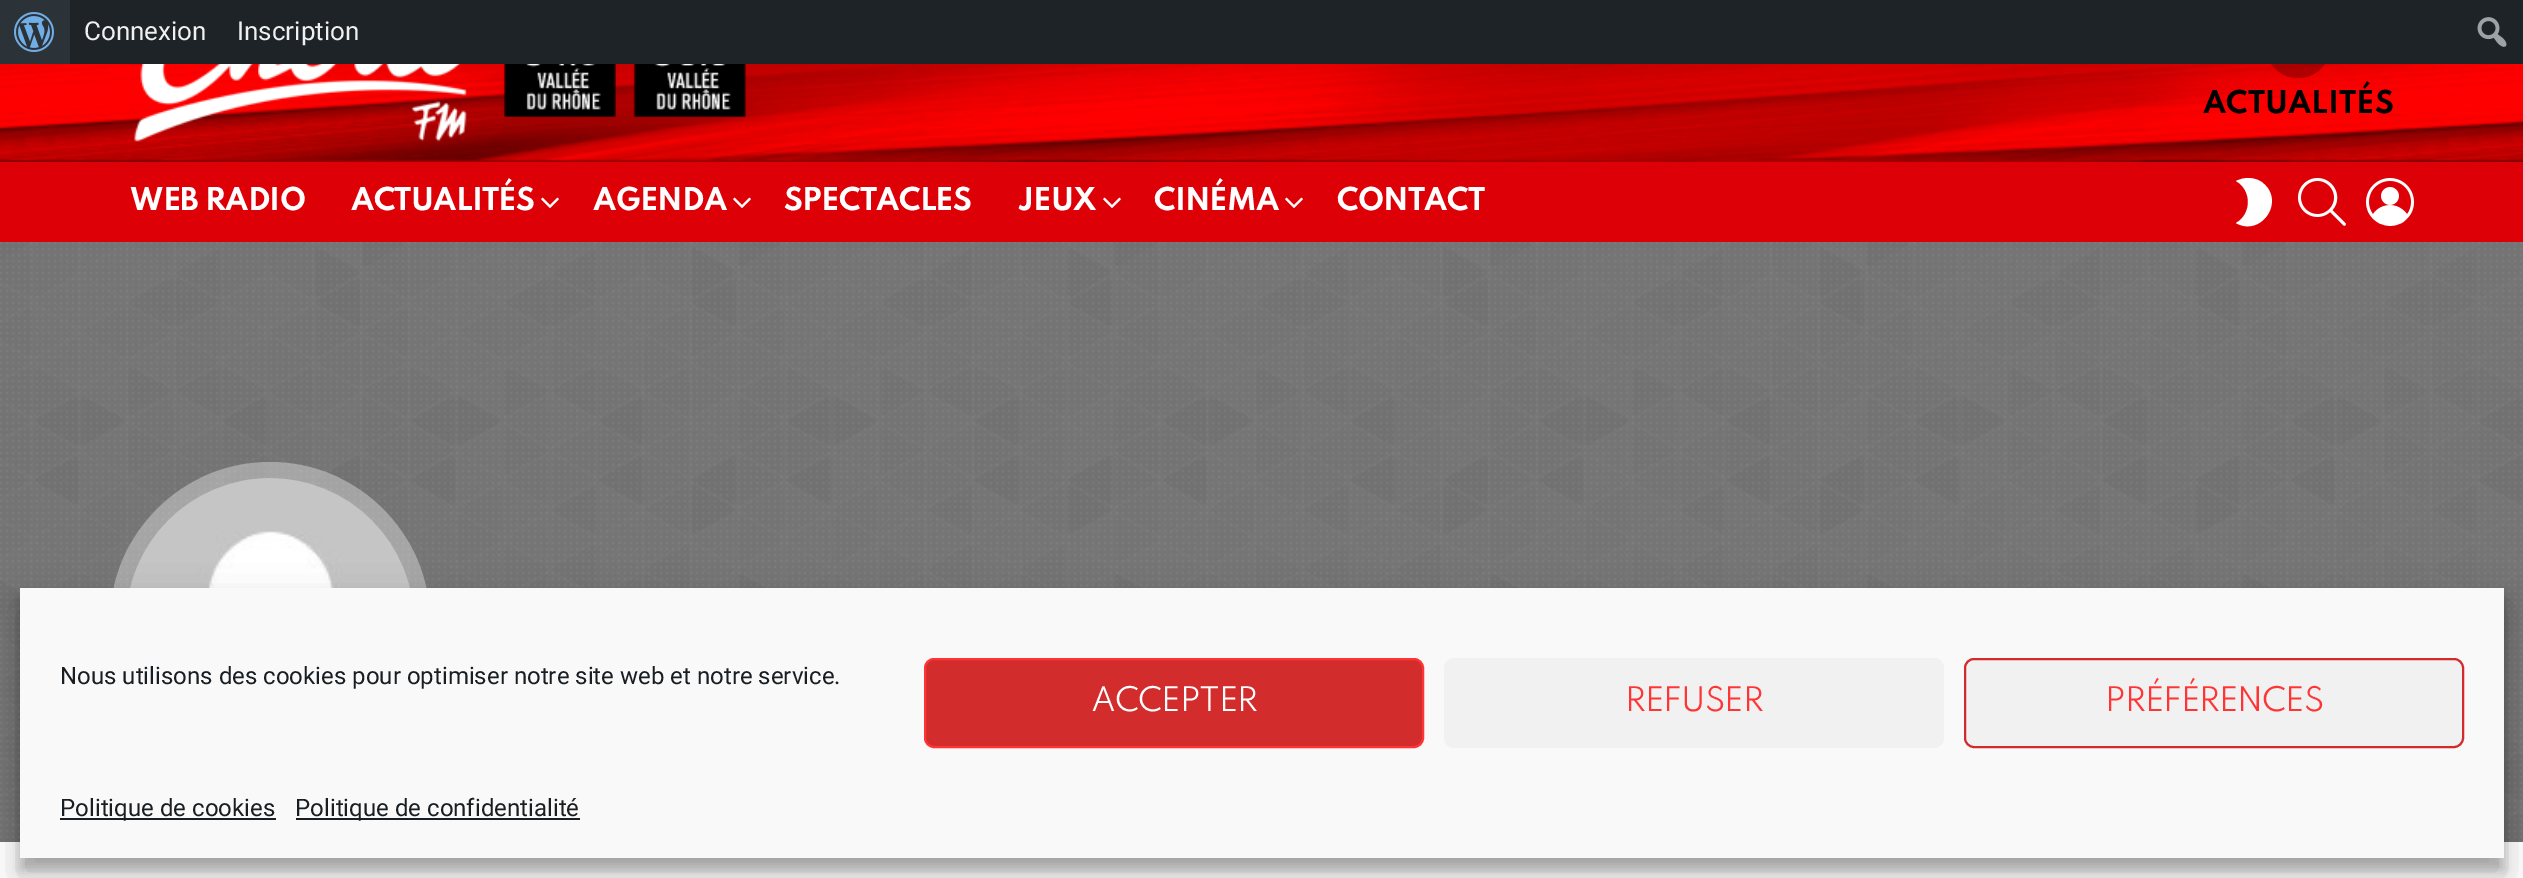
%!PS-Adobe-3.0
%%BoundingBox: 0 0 2523 878
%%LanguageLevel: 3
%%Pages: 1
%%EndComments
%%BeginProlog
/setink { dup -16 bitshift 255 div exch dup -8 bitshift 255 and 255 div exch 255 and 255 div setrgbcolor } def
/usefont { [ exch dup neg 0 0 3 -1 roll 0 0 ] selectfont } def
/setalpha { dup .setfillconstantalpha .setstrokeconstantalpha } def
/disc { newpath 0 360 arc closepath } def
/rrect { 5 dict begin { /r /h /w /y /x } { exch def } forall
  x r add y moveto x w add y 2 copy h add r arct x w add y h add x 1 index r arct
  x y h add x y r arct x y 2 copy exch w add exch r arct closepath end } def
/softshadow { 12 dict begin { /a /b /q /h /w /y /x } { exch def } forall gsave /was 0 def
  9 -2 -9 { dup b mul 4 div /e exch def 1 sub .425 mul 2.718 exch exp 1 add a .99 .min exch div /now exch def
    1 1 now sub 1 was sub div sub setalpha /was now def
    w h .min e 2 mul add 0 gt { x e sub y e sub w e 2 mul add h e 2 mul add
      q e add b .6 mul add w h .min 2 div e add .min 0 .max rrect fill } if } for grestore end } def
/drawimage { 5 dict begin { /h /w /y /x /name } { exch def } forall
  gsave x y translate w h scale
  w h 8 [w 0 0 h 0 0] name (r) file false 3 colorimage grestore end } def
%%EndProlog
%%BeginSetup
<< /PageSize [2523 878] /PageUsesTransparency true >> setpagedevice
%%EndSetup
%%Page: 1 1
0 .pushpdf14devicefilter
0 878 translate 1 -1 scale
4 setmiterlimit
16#EDEDED setink
0 0 2523 878 rectfill
(img3.raw) 0 64 2523 98 drawimage
0.25 setalpha
16#000000 setink
2298 14 moveto 2291 14 2284 16 2279 20 curveto 2254 39 2267 78 2298 78 curveto 2329 78 2342 39 2317 20 curveto 2312 16 2305 14 2298 14 curveto closepath 2314 58 moveto 2296 47 lineto 2296 26 lineto 2300 26 lineto 2300 45 lineto 2316 54 lineto closepath fill
1 setalpha
16#1D2327 setink
70 0 2453 64 rectfill
16#2C3338 setink
0 0 70 64 rectfill
(img1.raw) 14 12 40 40 drawimage
/Roboto-Regular 26 usefont
16#F0F0F1 setink
84 40 moveto (Connexion) show
237 40 moveto (Inscription) show
(img2.raw) 2477 17 30 30 drawimage
(img4.raw) 134 64 612 78 drawimage
/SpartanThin-Bold 28 usefont
16#000000 setink
2203 113 moveto (ACTUALITÉS) show
16#DD0007 setink
0 162 2523 80 rectfill
16#FFFFFF setink
130 210 moveto -0.75 0 (WEB RADIO) ashow
351 210 moveto -0.75 0 (ACTUALITÉS) ashow
(img5.raw) 541 197 18 11 drawimage
593 210 moveto -0.75 0 (AGENDA) ashow
(img5.raw) 733 197 18 11 drawimage
784 210 moveto -0.75 0 (SPECTACLES) ashow
1018 210 moveto -0.75 0 (JEUX) ashow
(img5.raw) 1103 197 18 11 drawimage
1154 210 moveto -0.75 0 (CINÉMA) ashow
(img5.raw) 1285 197 18 11 drawimage
1337 210 moveto -0.75 0 (CONTACT) ashow
2248 178 moveto 2244 178 2240 179 2236 181 curveto 2252 190 2252 214 2236 223 curveto 2260 237 2285 203 2264 184 curveto 2260 180 2254 178 2248 178 curveto closepath fill
(img6.raw) 2298 178 48 48 drawimage
(img7.raw) 2366 178 48 48 drawimage
(img8.raw) 0 242 2523 600 drawimage
0.5 setalpha
16#000000 setink
0 242 2523 600 rectfill
1 setalpha
(img9.raw) 0 242 2522 596 drawimage
0.35 setalpha
16#FFFFFF setink
270 622 160 disc fill
1 setalpha
(img10.raw) 130 478 280 110 drawimage
0 842 2523 36 rectfill
16#000000 setink
20 600 2484 270 0 6 0.23 softshadow
20 608 2484 270 0 20 0.19 softshadow
16#F9F9F9 setink
20 588 2484 270 rectfill
/Roboto-Regular 24 usefont
16#191E23 setink
60 684 moveto (Nous utilisons des cookies pour optimiser notre site web et notre service.) show
16#D32C2C setink
925 659 498 88 9 rrect gsave fill grestore
16#FF3535 setink
2 setlinewidth
stroke
/SpartanThin-Regular 30 usefont
16#FFFFFF setink
1091 711 moveto -0.9 0 (ACCEPTER) ashow
16#F1F1F1 setink
1444 658 500 90 10 rrect fill
16#FF3535 setink
1625 711 moveto -0.9 0 (REFUSER) ashow
16#F1F1F1 setink
1965 659 498 88 9 rrect gsave fill grestore
16#D12B2B setink
stroke
16#FF3535 setink
2105 711 moveto -0.9 0 (PRÉFÉRENCES) ashow
16#191E23 setink
60 818 216 2 rectfill
/Roboto-Regular 24 usefont
60 816 moveto (Politique de cookies) show
296 818 284 2 rectfill
295 816 moveto (Politique de confidentialité) show
.poppdf14devicefilter showpage
%%EOF
